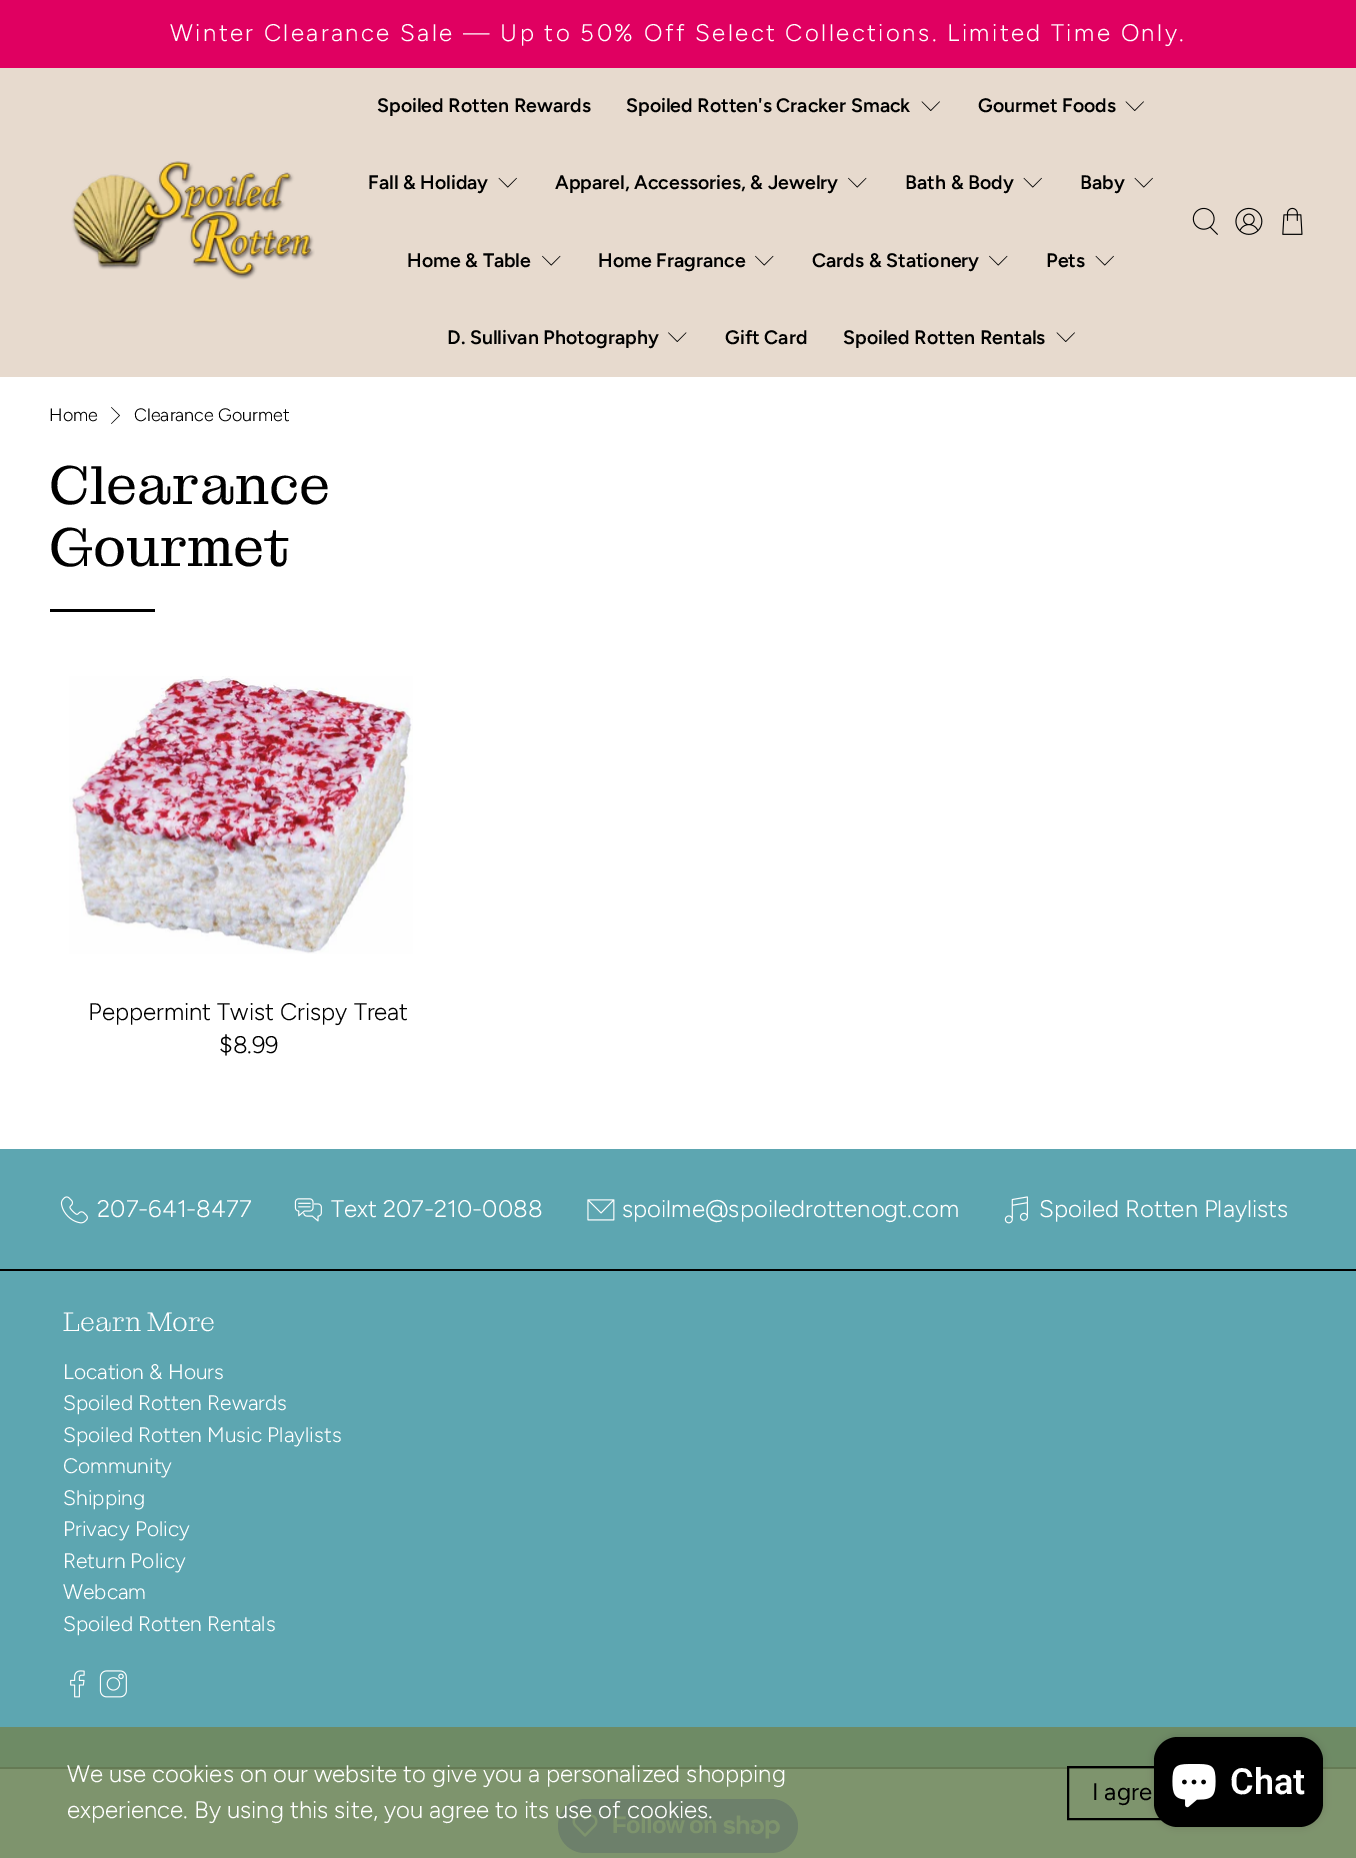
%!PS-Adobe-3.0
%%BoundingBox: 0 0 1356 1858
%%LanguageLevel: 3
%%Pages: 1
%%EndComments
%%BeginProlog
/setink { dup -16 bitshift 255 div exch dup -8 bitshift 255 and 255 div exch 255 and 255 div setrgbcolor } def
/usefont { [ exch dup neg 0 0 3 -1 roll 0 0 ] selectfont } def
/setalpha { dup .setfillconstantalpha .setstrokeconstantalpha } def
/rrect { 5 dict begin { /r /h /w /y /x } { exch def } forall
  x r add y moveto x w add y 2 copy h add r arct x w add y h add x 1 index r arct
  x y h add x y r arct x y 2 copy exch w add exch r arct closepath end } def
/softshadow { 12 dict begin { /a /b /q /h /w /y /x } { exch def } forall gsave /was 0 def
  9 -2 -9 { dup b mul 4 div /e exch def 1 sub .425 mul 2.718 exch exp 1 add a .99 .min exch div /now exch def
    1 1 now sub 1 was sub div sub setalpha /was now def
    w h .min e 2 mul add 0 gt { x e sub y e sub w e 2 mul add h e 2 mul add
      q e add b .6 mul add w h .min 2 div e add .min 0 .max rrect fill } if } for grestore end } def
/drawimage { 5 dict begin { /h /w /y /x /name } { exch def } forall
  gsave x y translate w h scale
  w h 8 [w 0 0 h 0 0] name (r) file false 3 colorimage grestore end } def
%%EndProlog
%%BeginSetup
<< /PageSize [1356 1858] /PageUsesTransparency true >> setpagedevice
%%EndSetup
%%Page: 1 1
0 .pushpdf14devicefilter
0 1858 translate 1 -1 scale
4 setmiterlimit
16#FFFFFF setink
0 0 1356 1858 rectfill
16#7E946D setink
0 1769 1356 89 rectfill
16#E00061 setink
0 0 1356 68 rectfill
/Figtree-Light 24 usefont
16#FFFFFF setink
170 41 moveto 2.4 0 (Winter Clearance Sale — Up to 50% Off Select Collections. Limited Time Only.) ashow
16#E7DACE setink
0 68 1356 309 rectfill
(img1.raw) 71 161 244 119 drawimage
/Figtree-SemiBold 19.5 usefont
16#000000 setink
377 112 moveto (Spoiled Rotten Rewards) show
626 112 moveto (Spoiled Rotten's Cracker Smack) show
(img2.raw) 921 101 19 10 drawimage
978 112 moveto (Gourmet Foods) show
(img2.raw) 1125 101 19 10 drawimage
368 189 moveto (Fall & Holiday) show
(img3.raw) 498 177 19 11 drawimage
555 189 moveto (Apparel, Accessories, & Jewelry) show
(img4.raw) 848 177 19 11 drawimage
905 189 moveto (Bath & Body) show
(img3.raw) 1023 177 19 11 drawimage
1080 189 moveto (Baby) show
(img3.raw) 1134 177 19 11 drawimage
407 267 moveto (Home & Table) show
(img4.raw) 542 255 19 11 drawimage
598 267 moveto (Home Fragrance) show
(img4.raw) 755 255 19 11 drawimage
812 267 moveto (Cards & Stationery) show
(img4.raw) 989 255 19 11 drawimage
1046 267 moveto (Pets) show
(img3.raw) 1095 255 19 11 drawimage
447 344 moveto (D. Sullivan Photography) show
(img5.raw) 668 332 19 10 drawimage
725 344 moveto (Gift Card) show
843 344 moveto (Spoiled Rotten Rentals) show
(img2.raw) 1056 332 19 10 drawimage
(img6.raw) 1192 207 26 28 drawimage
(img7.raw) 1235 207 28 28 drawimage
(img8.raw) 1282 207 21 28 drawimage
/Figtree-Light 18 usefont
49 421 moveto (Home) show
(img9.raw) 111 407 9 17 drawimage
134 421 moveto (Clearance Gourmet) show
/MontaguSlab-Regular 55.5 usefont
49 504 moveto (Clearance) show
49 566 moveto (Gourmet) show
50 609 105 3 rectfill
(img10.raw) 69 676 344 278 drawimage
/Figtree-Light 24 usefont
88 1020 moveto (Peppermint Twist Crispy Treat) show
219 1053 moveto ($8.99) show
16#5DA6B1 setink
0 1149 1356 120 rectfill
(img11.raw) 60 1196 28 28 drawimage
16#FFFFFF setink
97 1217 moveto (207-641-8477) show
(img12.raw) 294 1198 28 24 drawimage
331 1217 moveto (Text 207-210-0088) show
(img13.raw) 587 1199 28 22 drawimage
622 1217 moveto (spoilme@spoiledrottenogt.com) show
(img14.raw) 1004 1196 24 28 drawimage
1039 1217 moveto (Spoiled Rotten Playlists) show
[
    [0 1271 1356 456 16#5DA6B1]
    [0 1727 1356 40 16#6E8B65]
    [0 1269 1356 2 16#000000]
    [0 1767 1356 2 16#657A54]
] { aload pop setink rectfill } forall
/MontaguSlab-Light 27 usefont
16#FFFFFF setink
63 1331 moveto (Learn More) show
/Figtree-Light 21 usefont
[
    [(Location & Hours) 63 1379]
    [(Spoiled Rotten Rewards) 63 1410]
    [(Spoiled Rotten Music Playlists) 63 1442]
    [(Community) 63 1473]
    [(Shipping) 63 1505]
    [(Privacy Policy) 63 1536]
    [(Return Policy) 63 1568]
    [(Webcam) 63 1599]
    [(Spoiled Rotten Rentals) 63 1631]
] { aload pop moveto show } forall
(img15.raw) 70 1670 15 28 drawimage
(img16.raw) 99 1670 28 28 drawimage
16#6D806B setink
558 1799 240 54 27 rrect fill
(img17.raw) 572 1814 26 23 drawimage
/LiberationSans-Bold 24 usefont
16#7E946D setink
612 1833 moveto -0.75 0 (Follow on) ashow
(img18.raw) 723 1815 57 24 drawimage
/Figtree-Light 24 usefont
16#FFFFFF setink
67 1782 moveto (We use cookies on our website to give you a personalized shopping) show
67 1818 moveto (experience. By using this site, you agree to its use of cookies.) show
16#000000 setink
2 setlinewidth
1068 1767 122 52 rectstroke
/Figtree-Regular 24 usefont
1092 1800 moveto (I agre) show
1154 1737 169 90 24 4 0.15 softshadow
1154 1737 169 90 24 rrect fill
(img19.raw) 1172 1764 44 44 drawimage
/Roboto-SemiBold 36 usefont
16#FFFFFF setink
1230 1794 moveto (Chat) show
.poppdf14devicefilter showpage
%%EOF
